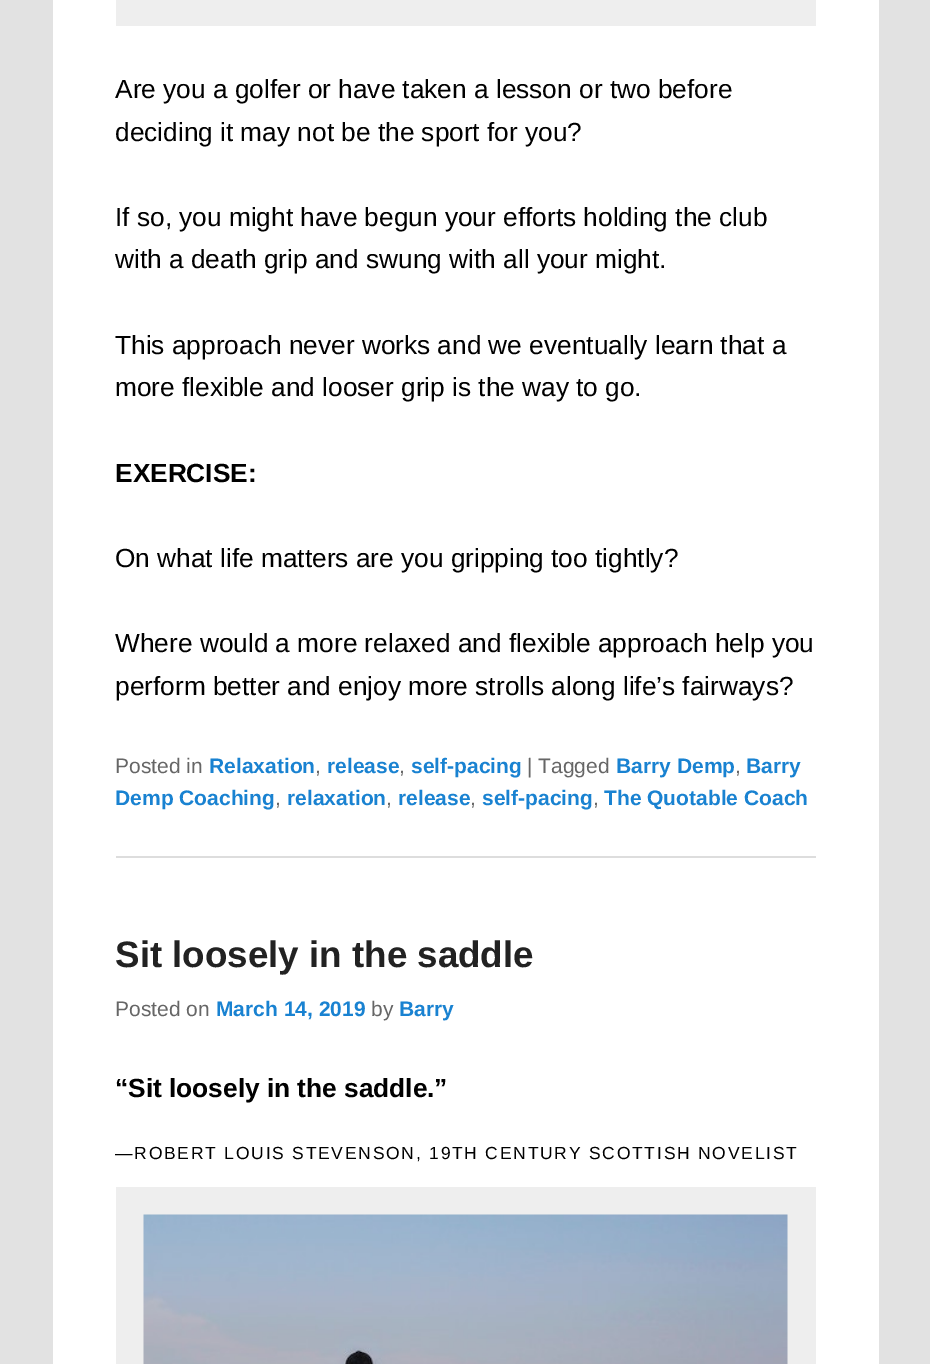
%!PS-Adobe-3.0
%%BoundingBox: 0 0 930 1364
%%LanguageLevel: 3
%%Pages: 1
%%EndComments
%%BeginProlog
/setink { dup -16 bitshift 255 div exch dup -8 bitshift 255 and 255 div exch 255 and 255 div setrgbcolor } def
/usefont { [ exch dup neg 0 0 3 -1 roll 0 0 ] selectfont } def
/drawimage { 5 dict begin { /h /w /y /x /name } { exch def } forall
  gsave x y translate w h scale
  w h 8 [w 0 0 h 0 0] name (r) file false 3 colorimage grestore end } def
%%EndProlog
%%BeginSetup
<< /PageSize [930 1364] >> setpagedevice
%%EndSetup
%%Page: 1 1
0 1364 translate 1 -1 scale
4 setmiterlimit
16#E2E2E2 setink
0 0 930 1364 rectfill
[
    [53 0 826 1364 16#FFFFFF]
    [116 856 700 2 16#DDDDDD]
    [116 0 700 26 16#EEEEEE]
] { aload pop setink rectfill } forall
/LiberationSans-Regular 26.25 usefont
16#000000 setink
[
    [(Are you a golfer or have taken a lesson or two before) 115 98]
    [(deciding it may not be the sport for you?) 115 141]
    [(If so, you might have begun your efforts holding the club) 115 226]
    [(with a death grip and swung with all your might.) 115 268]
    [(This approach never works and we eventually learn that a) 115 354]
    [(more flexible and looser grip is the way to go.) 115 396]
] { aload pop moveto show } forall
/LiberationSans-Bold 26.25 usefont
115 482 moveto (EXERCISE:) show
/LiberationSans-Regular 26.25 usefont
[
    [(On what life matters are you gripping too tightly?) 115 567]
    [(Where would a more relaxed and flexible approach help you) 115 652]
    [(perform better and enjoy more strolls along life’s fairways?) 115 695]
] { aload pop moveto show } forall
/LiberationSans-Regular 21 usefont
16#666666 setink
115 773 moveto (Posted in) show
/LiberationSans-Bold 21 usefont
16#1982D1 setink
209 773 moveto (Relaxation) show
/LiberationSans-Regular 21 usefont
16#666666 setink
315 773 moveto (,) show
/LiberationSans-Bold 21 usefont
16#1982D1 setink
327 773 moveto (release) show
/LiberationSans-Regular 21 usefont
16#666666 setink
399 773 moveto (,) show
/LiberationSans-Bold 21 usefont
16#1982D1 setink
411 773 moveto (self-pacing) show
/LiberationSans-Regular 21 usefont
16#666666 setink
527 773 moveto (| Tagged) show
/LiberationSans-Bold 21 usefont
16#1982D1 setink
616 773 moveto (Barry Demp) show
/LiberationSans-Regular 21 usefont
16#666666 setink
735 773 moveto (,) show
/LiberationSans-Bold 21 usefont
16#1982D1 setink
746 773 moveto (Barry) show
115 805 moveto (Demp Coaching) show
/LiberationSans-Regular 21 usefont
16#666666 setink
275 805 moveto (,) show
/LiberationSans-Bold 21 usefont
16#1982D1 setink
287 805 moveto (relaxation) show
/LiberationSans-Regular 21 usefont
16#666666 setink
386 805 moveto (,) show
/LiberationSans-Bold 21 usefont
16#1982D1 setink
398 805 moveto (release) show
/LiberationSans-Regular 21 usefont
16#666666 setink
470 805 moveto (,) show
/LiberationSans-Bold 21 usefont
16#1982D1 setink
482 805 moveto (self-pacing) show
/LiberationSans-Regular 21 usefont
16#666666 setink
593 805 moveto (,) show
/LiberationSans-Bold 21 usefont
16#1982D1 setink
604 805 moveto (The Quotable Coach) show
/LiberationSans-Bold 36.75 usefont
16#222222 setink
115 967 moveto (Sit loosely in the saddle) show
/LiberationSans-Regular 21 usefont
16#666666 setink
115 1016 moveto (Posted on) show
/LiberationSans-Bold 21 usefont
16#1982D1 setink
216 1016 moveto (March 14, 2019) show
/LiberationSans-Regular 21 usefont
16#666666 setink
371 1016 moveto (by) show
/LiberationSans-Bold 21 usefont
16#1982D1 setink
399 1016 moveto (Barry) show
/LiberationSans-Bold 26.25 usefont
16#000000 setink
115 1097 moveto (“Sit loosely in the saddle.”) show
/LiberationSans-Regular 17.5 usefont
115 1159 moveto 1.75 0 (—ROBERT LOUIS STEVENSON, 19TH CENTURY SCOTTISH NOVELIST) ashow
16#EEEEEE setink
116 1187 700 177 rectfill
(img1.raw) 143 1214 645 150 drawimage
showpage
%%EOF
